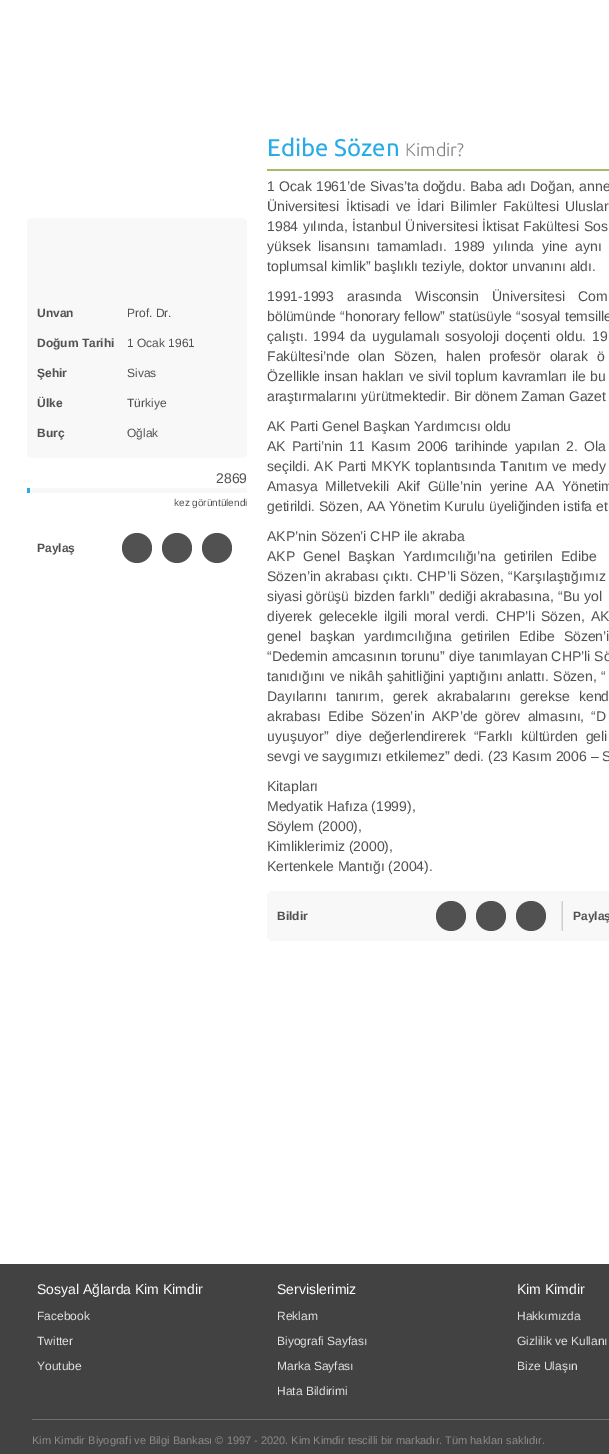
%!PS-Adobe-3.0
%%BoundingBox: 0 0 609 1454
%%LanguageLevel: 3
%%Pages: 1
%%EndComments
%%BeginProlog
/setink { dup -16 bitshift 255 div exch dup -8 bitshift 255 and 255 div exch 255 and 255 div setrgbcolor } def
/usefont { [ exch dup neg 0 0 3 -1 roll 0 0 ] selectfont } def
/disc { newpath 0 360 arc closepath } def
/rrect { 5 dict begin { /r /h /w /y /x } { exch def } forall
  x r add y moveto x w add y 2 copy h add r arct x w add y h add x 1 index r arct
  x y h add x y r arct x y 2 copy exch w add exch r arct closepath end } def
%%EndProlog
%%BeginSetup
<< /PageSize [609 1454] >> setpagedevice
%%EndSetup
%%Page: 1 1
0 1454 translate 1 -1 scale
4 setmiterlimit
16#FFFFFF setink
0 0 609 1454 rectfill
16#F8F8F8 setink
27 218 220 240 5 rrect fill
/LiberationSans-Bold 12 usefont
16#515151 setink
37 317 moveto (Unvan) show
/LiberationSans-Regular 12 usefont
127 317 moveto (Prof. Dr.) show
/LiberationSans-Bold 12 usefont
37 347 moveto (Doğum Tarihi) show
/LiberationSans-Regular 12 usefont
127 347 moveto (1 Ocak 1961) show
/LiberationSans-Bold 12 usefont
37 377 moveto (Şehir) show
/LiberationSans-Regular 12 usefont
127 377 moveto (Sivas) show
/LiberationSans-Bold 12 usefont
37 407 moveto (Ülke) show
/LiberationSans-Regular 12 usefont
127 407 moveto (Türkiye) show
/LiberationSans-Bold 12 usefont
37 437 moveto (Burç) show
/LiberationSans-Regular 12 usefont
127 437 moveto (Oğlak) show
/LiberationSans-Regular 14 usefont
216 483 moveto (2869) show
16#F8F8F8 setink
27 488 220 5 rectfill
16#29ABE6 setink
27 488 3 5 rectfill
/LiberationSans-Regular 10 usefont
16#515151 setink
174 506 moveto (kez görüntülendi) show
/LiberationSans-Bold 12 usefont
37 552 moveto (Paylaş) show
137 548 15 disc fill
177 548 15 disc fill
217 548 15 disc fill
16#A4BB69 setink
267 169 342 2 rectfill
/Ubuntu-Regular 24 usefont
16#29ABE6 setink
267 156 moveto (Edibe Sözen) show
/Ubuntu-Light 18 usefont
16#818181 setink
405 156 moveto (Kimdir?) show
/LiberationSans-Regular 14 usefont
16#515151 setink
267 191 moveto 0.25 0 32 (1 Ocak 1961’de Sivas’ta doğdu. Baba adı Doğan, anne) widthshow
267 211 moveto 2.5 0 32 (Üniversitesi İktisadi ve İdari Bilimler Fakültesi Uluslar) widthshow
267 231 moveto 0.5 0 32 (1984 yılında, İstanbul Üniversitesi İktisat Fakültesi Sos) widthshow
267 251 moveto 3.75 0 32 (yüksek lisansını tamamladı. 1989 yılında yine aynı) widthshow
267 271 moveto (toplumsal kimlik” başlıklı teziyle, doktor unvanını aldı.) show
267 301 moveto 9.5 0 32 (1991-1993 arasında Wisconsin Üniversitesi Com) widthshow
267 321 moveto 0.25 0 32 (bölümünde “honorary fellow” statüsüyle “sosyal temsille) widthshow
267 341 moveto 2 0 32 (çalıştı. 1994 da uygulamalı sosyoloji doçenti oldu. 19) widthshow
267 361 moveto 5 0 32 (Fakültesi’nde olan Sözen, halen profesör olarak ö) widthshow
267 381 moveto 0.5 0 32 (Özellikle insan hakları ve sivil toplum kavramları ile bu) widthshow
267 401 moveto (araştırmalarını yürütmektedir. Bir dönem Zaman Gazet) show
267 431 moveto (AK Parti Genel Başkan Yardımcısı oldu) show
267 451 moveto 2.5 0 32 (AK Parti’nin 11 Kasım 2006 tarihinde yapılan 2. Ola) widthshow
267 471 moveto 0.75 0 32 (seçildi. AK Parti MKYK toplantısında Tanıtım ve medy) widthshow
267 491 moveto 3.75 0 32 (Amasya Milletvekili Akif Gülle’nin yerine AA Yönetim) widthshow
267 511 moveto (getirildi. Sözen, AA Yönetim Kurulu üyeliğinden istifa et) show
267 541 moveto (AKP’nin Sözen’i CHP ile akraba) show
267 561 moveto 4 0 32 (AKP Genel Başkan Yardımcılığı’na getirilen Edibe) widthshow
267 581 moveto 0.5 0 32 (Sözen’in akrabası çıktı. CHP’li Sözen, “Karşılaştığımız) widthshow
267 601 moveto 0.5 0 32 (siyasi görüşü bizden farklı” dediği akrabasına, “Bu yol) widthshow
267 621 moveto 2.5 0 32 (diyerek gelecekle ilgili moral verdi. CHP’li Sözen, AK) widthshow
267 641 moveto 5 0 32 (genel başkan yardımcılığına getirilen Edibe Sözen’i) widthshow
267 661 moveto 0.25 0 32 (“Dedemin amcasının torunu” diye tanımlayan CHP’li Sö) widthshow
267 681 moveto 0.5 0 32 (tanıdığını ve nikâh şahitliğini yaptığını anlattı. Sözen, “) widthshow
267 701 moveto 5.25 0 32 (Dayılarını tanırım, gerek akrabalarını gerekse kend) widthshow
267 721 moveto 3.25 0 32 (akrabası Edibe Sözen’in AKP’de görev almasını, “D) widthshow
267 741 moveto 3.5 0 32 (uyuşuyor” diye değerlendirerek “Farklı kültürden geli) widthshow
[
    [(sevgi ve saygımızı etkilemez” dedi. \(23 Kasım 2006 – S) 267 761]
    [(Kitapları) 267 791]
    [(Medyatik Hafıza \(1999\),) 267 811]
    [(Söylem \(2000\),) 267 831]
    [(Kimliklerimiz \(2000\),) 267 851]
    [(Kertenkele Mantığı \(2004\).) 267 871]
] { aload pop moveto show } forall
16#F8F8F8 setink
267 891 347 50 5 rrect fill
16#E5E5E5 setink
561 901 1 30 rectfill
/LiberationSans-Bold 12 usefont
16#515151 setink
277 920 moveto (Bildir) show
451 916 15 disc fill
491 916 15 disc fill
531 916 15 disc fill
16#CDCDCD setink
562 901 1 30 rectfill
16#515151 setink
573 920 moveto (Paylaş) show
16#424242 setink
0 1264 609 190 rectfill
/LiberationSans-Regular 14 usefont
16#FFFFFF setink
37 1294 moveto (Sosyal Ağlarda Kim Kimdir) show
/LiberationSans-Regular 12 usefont
16#E2E2E2 setink
[
    [(Facebook) 37 1320]
    [(Twitter) 37 1345]
    [(Youtube) 37 1370]
] { aload pop moveto show } forall
/LiberationSans-Regular 14 usefont
16#FFFFFF setink
277 1294 moveto (Servislerimiz) show
/LiberationSans-Regular 12 usefont
16#E2E2E2 setink
[
    [(Reklam) 277 1320]
    [(Biyografi Sayfası) 277 1345]
    [(Marka Sayfası) 277 1370]
    [(Hata Bildirimi) 277 1395]
] { aload pop moveto show } forall
/LiberationSans-Regular 14 usefont
16#FFFFFF setink
517 1294 moveto (Kim Kimdir) show
/LiberationSans-Regular 12 usefont
16#E2E2E2 setink
[
    [(Hakkımızda) 517 1320]
    [(Gizlilik ve Kullanı) 517 1345]
    [(Bize Ulaşın) 517 1370]
] { aload pop moveto show } forall
16#6E6E6E setink
32 1419 577 1 rectfill
/LiberationSans-Regular 11 usefont
16#8B8B8B setink
32 1444 moveto (Kim Kimdir Biyografi ve Bilgi Bankası © 1997 - 2020. Kim Kimdir tescilli bir markadır. Tüm hakları saklıdır.) show
showpage
%%EOF
